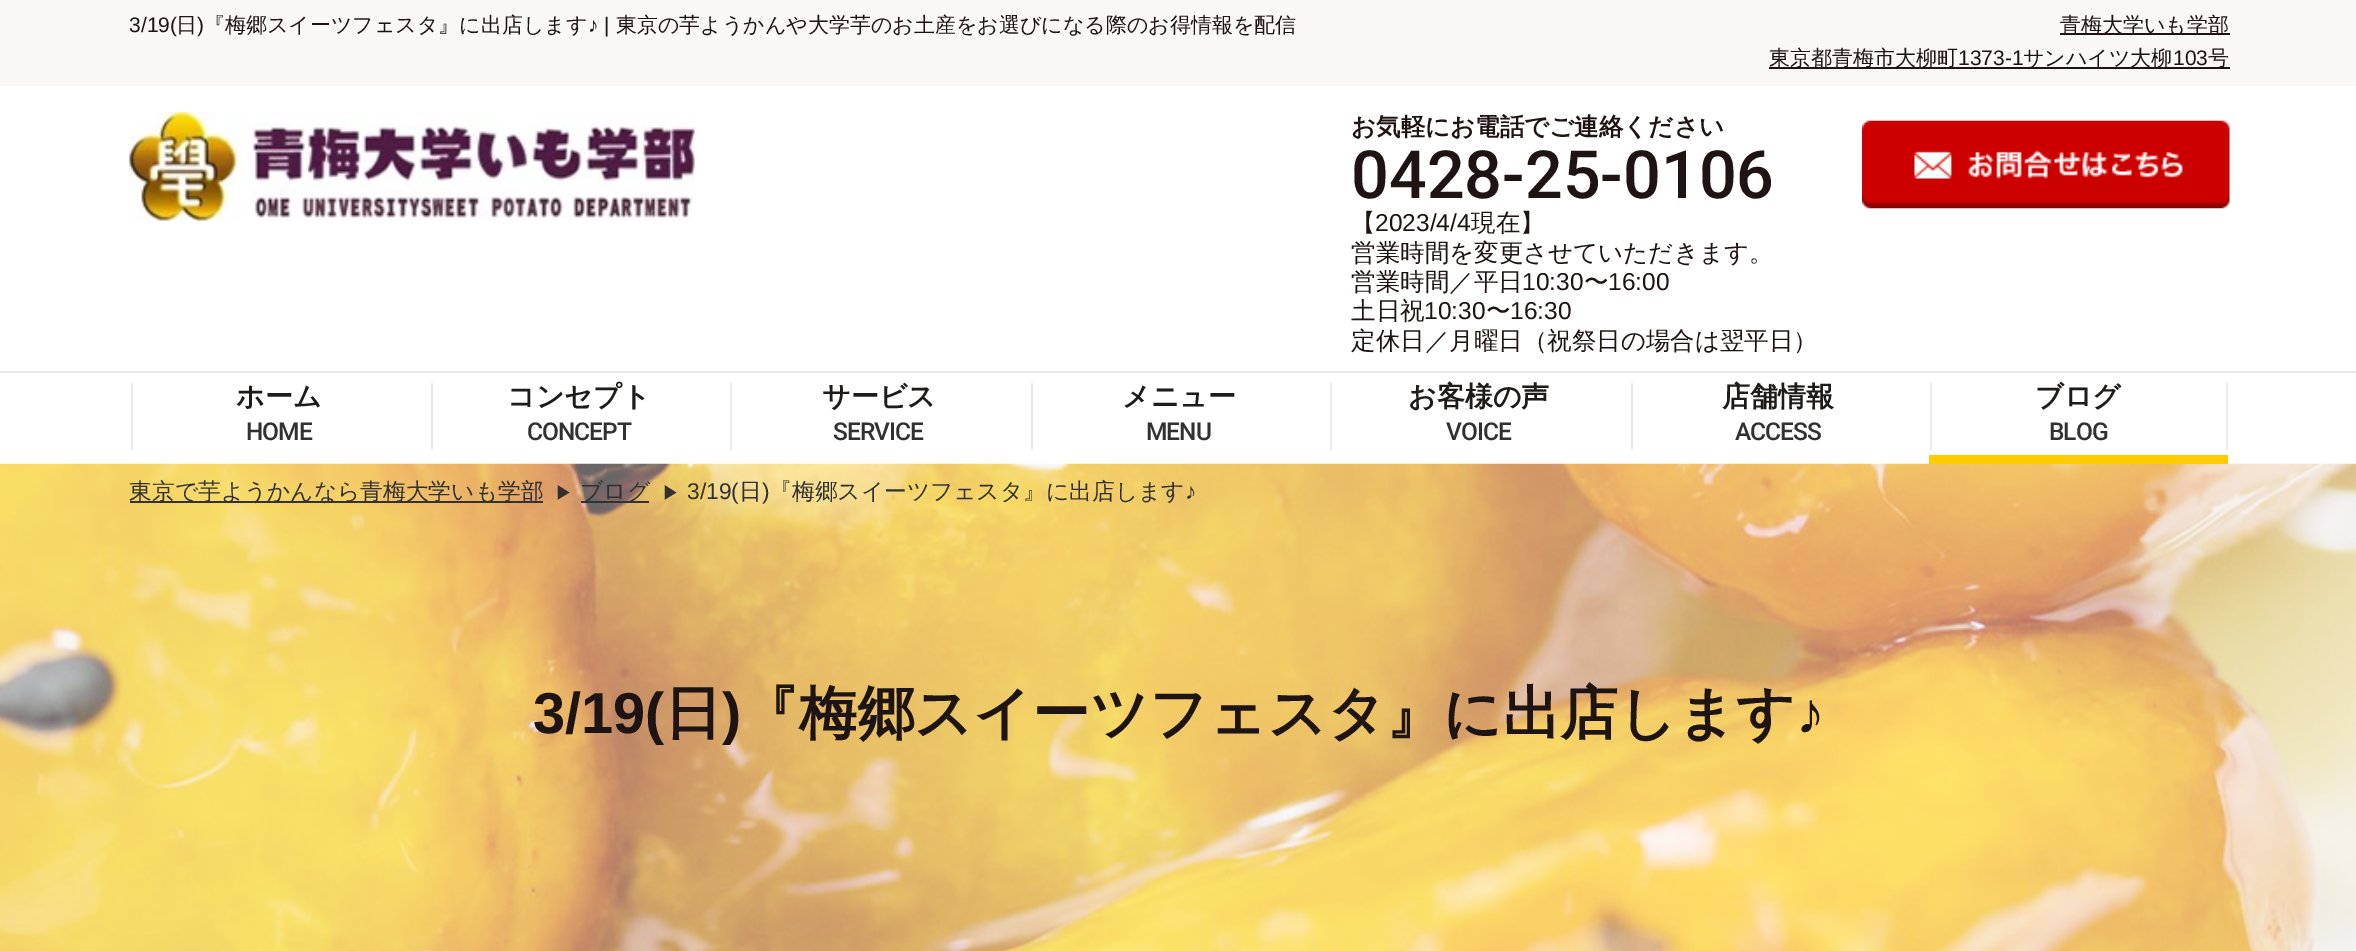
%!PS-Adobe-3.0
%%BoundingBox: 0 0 2356 951
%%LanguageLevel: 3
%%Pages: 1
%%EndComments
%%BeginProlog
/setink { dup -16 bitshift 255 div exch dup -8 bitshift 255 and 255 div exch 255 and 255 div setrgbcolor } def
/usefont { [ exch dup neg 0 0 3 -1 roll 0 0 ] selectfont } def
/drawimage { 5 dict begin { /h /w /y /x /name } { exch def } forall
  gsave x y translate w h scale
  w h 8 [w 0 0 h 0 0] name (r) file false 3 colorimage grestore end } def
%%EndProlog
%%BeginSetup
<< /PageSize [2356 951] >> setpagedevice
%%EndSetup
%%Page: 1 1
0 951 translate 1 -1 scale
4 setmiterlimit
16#FFFFFF setink
0 0 2356 951 rectfill
16#F9F8F4 setink
0 0 2356 86 rectfill
/LiberationSans-Regular 21 usefont
16#1E1413 setink
129 32 moveto (3/19\() show
/WenQuanYiZenHei-Medium 21 usefont
176 32 moveto (日) show
/LiberationSans-Regular 21 usefont
197 32 moveto (\)) show
/WenQuanYiZenHei-Medium 21 usefont
204 32 moveto (『梅郷スイーツフェスタ』に出店します) show
/LiberationSans-Regular 21 usefont
588 32 moveto (♪ |) show
/WenQuanYiZenHei-Medium 21 usefont
616 32 moveto (東京の芋ようかんや大学芋のお土産をお選びになる際のお得情報を配信) show
2060 33 170 2 rectfill
2060 32 moveto (青梅大学いも学部) show
1769 67 461 2 rectfill
1769 65 moveto (東京都青梅市大柳町) show
/LiberationSans-Regular 21 usefont
1958 65 moveto (1373-1) show
/WenQuanYiZenHei-Medium 21 usefont
2023 65 moveto (サンハイツ大柳) show
/LiberationSans-Regular 21 usefont
2173 65 moveto (103) show
/WenQuanYiZenHei-Medium 21 usefont
2208 65 moveto (号) show
(img1.raw) 129 112 566 109 drawimage
/WenQuanYiZenHei-Bold 24.5 usefont
1351 135 moveto (お気軽にお電話でご連絡ください) show
/Roboto-Medium 66.5 usefont
1351 198 moveto (0428-25-0106) show
/WenQuanYiZenHei-Medium 24.5 usefont
1351 231 moveto (【) show
/LiberationSans-Regular 24.5 usefont
1375 231 moveto (2023/4/4) show
/WenQuanYiZenHei-Medium 24.5 usefont
[
    [(現在】) 1471 231]
    [(営業時間を変更させていただきます。) 1351 261]
    [(営業時間／平日) 1351 290]
] { aload pop moveto show } forall
/LiberationSans-Regular 24.5 usefont
1522 290 moveto (10:30) show
/WenQuanYiZenHei-Medium 24.5 usefont
1584 290 moveto (〜) show
/LiberationSans-Regular 24.5 usefont
1608 290 moveto (16:00) show
/WenQuanYiZenHei-Medium 24.5 usefont
1351 319 moveto (土日祝) show
/LiberationSans-Regular 24.5 usefont
1424 319 moveto (10:30) show
/WenQuanYiZenHei-Medium 24.5 usefont
1486 319 moveto (〜) show
/LiberationSans-Regular 24.5 usefont
1510 319 moveto (16:30) show
/WenQuanYiZenHei-Medium 24.5 usefont
1351 349 moveto (定休日／月曜日（祝祭日の場合は翌平日）) show
(img2.raw) 1862 120 368 89 drawimage
16#EAEAEA setink
0 371 2356 2 rectfill
131 383 2 67 rectfill
/WenQuanYiZenHei-Bold 28 usefont
16#1D1C1A setink
236 406 moveto (ホーム) show
/Roboto-Medium 24.5 usefont
16#313131 setink
246 440 moveto -1 0 (HOME) ashow
16#EAEAEA setink
431 383 2 67 rectfill
/WenQuanYiZenHei-Bold 28 usefont
16#1D1C1A setink
507 406 moveto (コンセプト) show
/Roboto-Medium 24.5 usefont
16#313131 setink
527 440 moveto -1 0 (CONCEPT) ashow
16#EAEAEA setink
730 383 2 67 rectfill
/WenQuanYiZenHei-Bold 28 usefont
16#1D1C1A setink
822 406 moveto (サービス) show
/Roboto-Medium 24.5 usefont
16#313131 setink
833 440 moveto -1 0 (SERVICE) ashow
16#EAEAEA setink
1031 383 2 67 rectfill
/WenQuanYiZenHei-Bold 28 usefont
16#1D1C1A setink
1122 406 moveto (メニュー) show
/Roboto-Medium 24.5 usefont
16#313131 setink
1146 440 moveto -1 0 (MENU) ashow
16#EAEAEA setink
1330 383 2 67 rectfill
/WenQuanYiZenHei-Bold 28 usefont
16#1D1C1A setink
1408 406 moveto (お客様の声) show
/Roboto-Medium 24.5 usefont
16#313131 setink
1446 440 moveto -1 0 (VOICE) ashow
16#EAEAEA setink
1631 383 2 67 rectfill
/WenQuanYiZenHei-Bold 28 usefont
16#1D1C1A setink
1722 406 moveto (店舗情報) show
/Roboto-Medium 24.5 usefont
16#313131 setink
1735 440 moveto -1 0 (ACCESS) ashow
16#EAEAEA setink
1930 383 2 67 rectfill
(img3.raw) 0 463 2356 488 drawimage
16#FFCC00 setink
1929 455 299 9 rectfill
/WenQuanYiZenHei-Bold 28 usefont
16#1D1C1A setink
2035 406 moveto (ブログ) show
/Roboto-Medium 24.5 usefont
16#313131 setink
2049 440 moveto -1 0 (BLOG) ashow
16#EAEAEA setink
2226 383 2 67 rectfill
16#323232 setink
130 501 413 2 rectfill
/WenQuanYiZenHei-Medium 22.75 usefont
16#313131 setink
129 499 moveto (東京で芋ようかんなら青梅大学いも学部) show
/WenQuanYiZenHei-Medium 18 usefont
555 499 moveto (▶) show
16#323232 setink
581 501 68 2 rectfill
/WenQuanYiZenHei-Medium 22.75 usefont
16#313131 setink
580 499 moveto (ブログ) show
/WenQuanYiZenHei-Medium 18 usefont
662 499 moveto (▶) show
/LiberationSans-Regular 22.75 usefont
687 499 moveto (3/19\() show
/WenQuanYiZenHei-Medium 22.75 usefont
739 499 moveto (日) show
/LiberationSans-Regular 22.75 usefont
762 499 moveto (\)) show
/WenQuanYiZenHei-Medium 22.75 usefont
769 499 moveto (『梅郷スイーツフェスタ』に出店します) show
/LiberationSans-Regular 22.75 usefont
1185 499 moveto (♪) show
/LiberationSans-Bold 57.75 usefont
16#1E1413 setink
533 733 moveto (3/19\() show
/WenQuanYiZenHei-Bold 57.75 usefont
664 733 moveto (日) show
/LiberationSans-Bold 57.75 usefont
722 733 moveto (\)) show
/WenQuanYiZenHei-Bold 57.75 usefont
741 733 moveto (『梅郷スイーツフェスタ』に出店します) show
/LiberationSans-Bold 57.75 usefont
1796 733 moveto (♪) show
showpage
%%EOF
